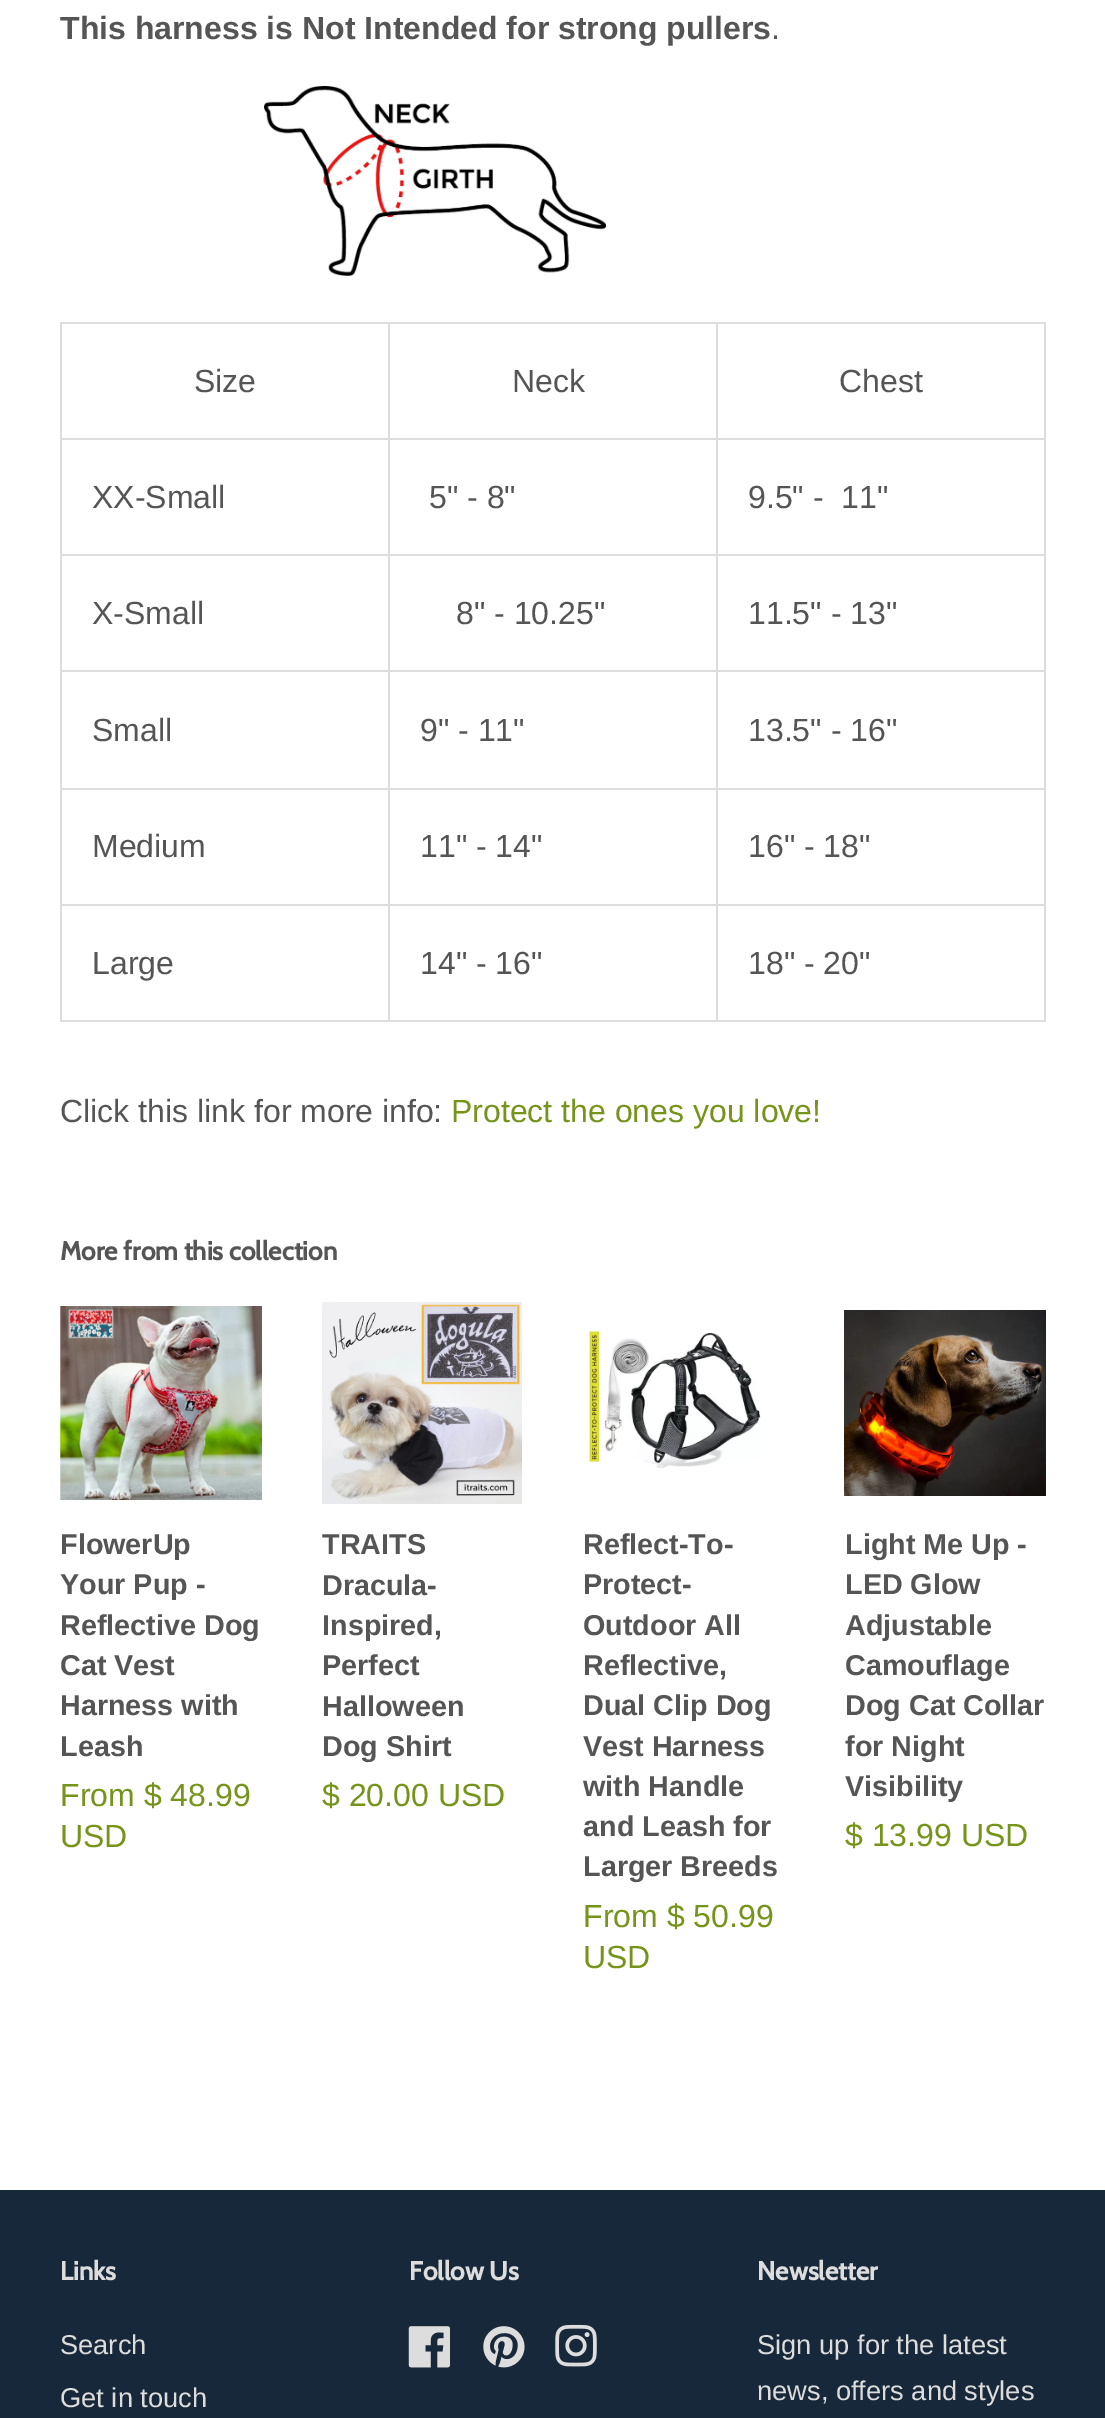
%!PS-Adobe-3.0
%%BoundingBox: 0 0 1105 2418
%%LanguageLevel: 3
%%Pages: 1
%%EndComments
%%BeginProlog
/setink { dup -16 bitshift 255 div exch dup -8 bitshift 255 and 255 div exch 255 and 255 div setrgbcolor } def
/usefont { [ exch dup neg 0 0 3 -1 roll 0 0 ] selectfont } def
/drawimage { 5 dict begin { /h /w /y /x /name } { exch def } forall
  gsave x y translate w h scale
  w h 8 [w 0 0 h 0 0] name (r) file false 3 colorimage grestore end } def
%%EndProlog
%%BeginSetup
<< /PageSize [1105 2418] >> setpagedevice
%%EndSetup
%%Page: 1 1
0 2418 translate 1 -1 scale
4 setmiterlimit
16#FFFFFF setink
0 0 1105 2418 rectfill
/LiberationSans-Bold 32 usefont
16#555555 setink
60 39 moveto (This harness is Not Intended for strong pullers) show
/LiberationSans-Regular 32 usefont
771 39 moveto (.) show
(img1.raw) 264 86 342 190 drawimage
[
    [716 322 330 2 16#DDDDDD]
    [716 438 330 2 16#DDDDDD]
    [716 554 330 2 16#DDDDDD]
    [716 670 330 2 16#DDDDDD]
    [716 788 330 2 16#DDDDDD]
    [716 904 330 2 16#DDDDDD]
    [1044 904 2 118 16#DDDDDD]
    [716 1020 330 2 16#DDDDDD]
    [716 904 2 118 16#DDDDDD]
    [388 904 330 2 16#DDDDDD]
    [716 788 2 118 16#DDDDDD]
    [388 788 330 2 16#DDDDDD]
    [716 670 2 120 16#DDDDDD]
    [388 670 330 2 16#DDDDDD]
    [716 554 2 118 16#DDDDDD]
    [388 554 330 2 16#DDDDDD]
    [716 438 2 118 16#DDDDDD]
    [388 438 330 2 16#DDDDDD]
    [716 322 2 118 16#DDDDDD]
    [388 322 330 2 16#DDDDDD]
    [388 1020 330 2 16#DDDDDD]
    [388 904 2 118 16#DDDDDD]
    [60 904 330 2 16#DDDDDD]
    [388 788 2 118 16#DDDDDD]
    [60 788 330 2 16#DDDDDD]
    [388 670 2 120 16#DDDDDD]
    [60 670 330 2 16#DDDDDD]
    [388 554 2 118 16#DDDDDD]
    [60 554 330 2 16#DDDDDD]
    [388 438 2 118 16#DDDDDD]
    [60 438 330 2 16#DDDDDD]
    [388 322 2 118 16#DDDDDD]
    [60 322 330 2 16#DDDDDD]
    [60 1020 330 2 16#DDDDDD]
    [60 904 2 118 16#DDDDDD]
    [60 788 2 118 16#DDDDDD]
    [60 670 2 120 16#DDDDDD]
    [60 554 2 118 16#DDDDDD]
    [60 438 2 118 16#DDDDDD]
    [60 322 2 118 16#DDDDDD]
] { aload pop setink rectfill } forall
16#555555 setink
194 392 moveto (Size) show
512 392 moveto (Neck) show
[
    [1044 788 2 118 16#DDDDDD]
    [1044 670 2 120 16#DDDDDD]
    [1044 554 2 118 16#DDDDDD]
    [1044 438 2 118 16#DDDDDD]
    [1044 322 2 118 16#DDDDDD]
] { aload pop setink rectfill } forall
16#555555 setink
[
    [(Chest) 839 392]
    [(XX-Small) 92 508]
    [(5" - 8") 429 508]
    [(9.5" -  11") 748 508]
    [(X-Small) 92 624]
    [(8" - 10.25") 456 624]
    [(11.5" - 13") 748 624]
    [(Small) 92 741]
    [(9" - 11") 420 741]
    [(13.5" - 16") 748 741]
    [(Medium) 92 857]
    [(11" - 14") 420 857]
    [(16" - 18") 748 857]
    [(Large) 92 974]
    [(14" - 16") 420 974]
    [(18" - 20") 748 974]
    [(Click this link for more info:) 60 1122]
] { aload pop moveto show } forall
16#75941A setink
451 1122 moveto (Protect the ones you love!) show
/Cabin-Bold 26 usefont
16#555555 setink
60 1260 moveto (More from this collection) show
(img2.raw) 60 1306 202 194 drawimage
/LiberationSans-Bold 28.75 usefont
[
    [(FlowerUp) 60 1554]
    [(Your Pup -) 60 1594]
    [(Reflective Dog) 60 1635]
    [(Cat Vest) 60 1675]
    [(Harness with) 60 1715]
    [(Leash) 60 1756]
] { aload pop moveto show } forall
/LiberationSans-Regular 32 usefont
16#75941A setink
60 1806 moveto (From $ 48.99) show
60 1847 moveto (USD) show
(img3.raw) 322 1302 200 202 drawimage
/LiberationSans-Bold 28.75 usefont
16#555555 setink
[
    [(TRAITS) 322 1554]
    [(Dracula-) 322 1595]
    [(Inspired,) 322 1635]
    [(Perfect) 322 1675]
    [(Halloween) 322 1716]
    [(Dog Shirt) 322 1756]
] { aload pop moveto show } forall
/LiberationSans-Regular 32 usefont
16#75941A setink
322 1806 moveto ($ 20.00 USD) show
(img4.raw) 589 1330 172 138 drawimage
/LiberationSans-Bold 28.75 usefont
16#555555 setink
[
    [(Reflect-To-) 583 1554]
    [(Protect-) 583 1594]
    [(Outdoor All) 583 1635]
    [(Reflective,) 583 1675]
    [(Dual Clip Dog) 583 1715]
    [(Vest Harness) 583 1756]
    [(with Handle) 583 1796]
    [(and Leash for) 583 1836]
    [(Larger Breeds) 583 1876]
] { aload pop moveto show } forall
/LiberationSans-Regular 32 usefont
16#75941A setink
583 1927 moveto (From $ 50.99) show
583 1968 moveto (USD) show
(img5.raw) 844 1310 202 186 drawimage
/LiberationSans-Bold 28.75 usefont
16#555555 setink
[
    [(Light Me Up -) 845 1554]
    [(LED Glow) 845 1594]
    [(Adjustable) 845 1635]
    [(Camouflage) 845 1675]
    [(Dog Cat Collar) 845 1715]
    [(for Night) 845 1756]
    [(Visibility) 845 1796]
] { aload pop moveto show } forall
/LiberationSans-Regular 32 usefont
16#75941A setink
845 1846 moveto ($ 13.99 USD) show
16#17283A setink
0 2190 1105 228 rectfill
/Cabin-Bold 26 usefont
16#DDDDDD setink
60 2280 moveto (Links) show
/LiberationSans-Regular 27.25 usefont
60 2354 moveto (Search) show
60 2407 moveto (Get in touch) show
/Cabin-Bold 26 usefont
409 2280 moveto (Follow Us) show
(img6.raw) 408 2326 43 42 drawimage
(img7.raw) 483 2326 42 42 drawimage
(img8.raw) 555 2324 42 43 drawimage
757 2280 moveto (Newsletter) show
/LiberationSans-Regular 27.25 usefont
757 2354 moveto (Sign up for the latest) show
757 2400 moveto (news, offers and styles) show
showpage
%%EOF
